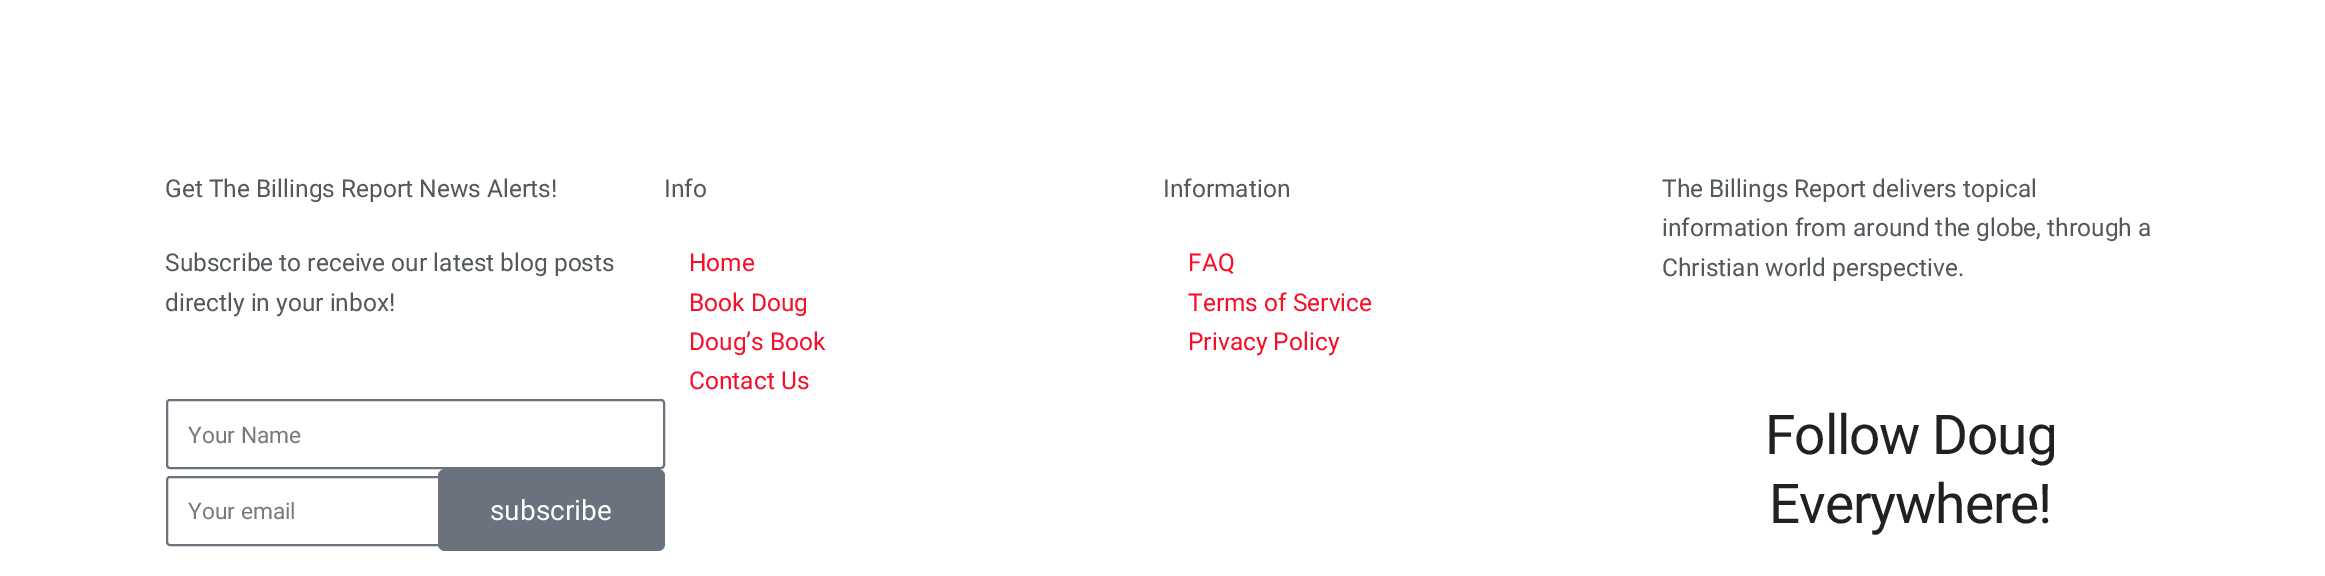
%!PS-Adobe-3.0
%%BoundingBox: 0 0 2325 576
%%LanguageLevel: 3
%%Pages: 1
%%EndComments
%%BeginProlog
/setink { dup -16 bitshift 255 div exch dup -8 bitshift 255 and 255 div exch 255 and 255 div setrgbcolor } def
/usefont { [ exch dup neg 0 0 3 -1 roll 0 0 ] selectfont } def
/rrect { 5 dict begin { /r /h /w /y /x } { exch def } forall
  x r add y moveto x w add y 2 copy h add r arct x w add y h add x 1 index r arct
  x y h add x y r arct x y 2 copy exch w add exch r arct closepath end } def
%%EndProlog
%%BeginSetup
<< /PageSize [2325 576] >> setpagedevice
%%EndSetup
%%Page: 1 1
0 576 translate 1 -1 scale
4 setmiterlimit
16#FFFFFF setink
0 0 2325 576 rectfill
/Roboto-Regular 24.5 usefont
16#53585C setink
[
    [(Get The Billings Report News Alerts!) 165 197]
    [(Subscribe to receive our latest blog posts) 165 271]
    [(directly in your inbox!) 165 311]
] { aload pop moveto show } forall
16#69727D setink
2 setlinewidth
167 400 497 68 3 rrect stroke
/Roboto-Regular 22.75 usefont
16#797A7C setink
188 443 moveto (Your Name) show
16#69727D setink
167 477 298 68 3 rrect stroke
16#797A7C setink
188 519 moveto (Your email) show
16#69727D setink
438 469 227 82 7 rrect fill
/Roboto-Regular 28 usefont
16#FFFFFF setink
490 520 moveto (subscribe) show
/Roboto-Regular 24.5 usefont
16#53585C setink
664 197 moveto (Info) show
16#F70D28 setink
[
    [(Home) 689 271]
    [(Book Doug) 689 311]
    [(Doug’s Book) 689 350]
    [(Contact Us) 689 389]
] { aload pop moveto show } forall
16#53585C setink
1163 197 moveto (Information) show
16#F70D28 setink
[
    [(FAQ) 1188 271]
    [(Terms of Service) 1188 311]
    [(Privacy Policy) 1188 350]
] { aload pop moveto show } forall
16#53585C setink
[
    [(The Billings Report delivers topical) 1662 197]
    [(information from around the globe, through a) 1662 236]
    [(Christian world perspective.) 1662 276]
] { aload pop moveto show } forall
/Roboto-Regular 55 usefont
16#212121 setink
1765 454 moveto -1.1 0 (Follow Doug) ashow
1769 523 moveto -1.1 0 (Everywhere!) ashow
showpage
%%EOF
